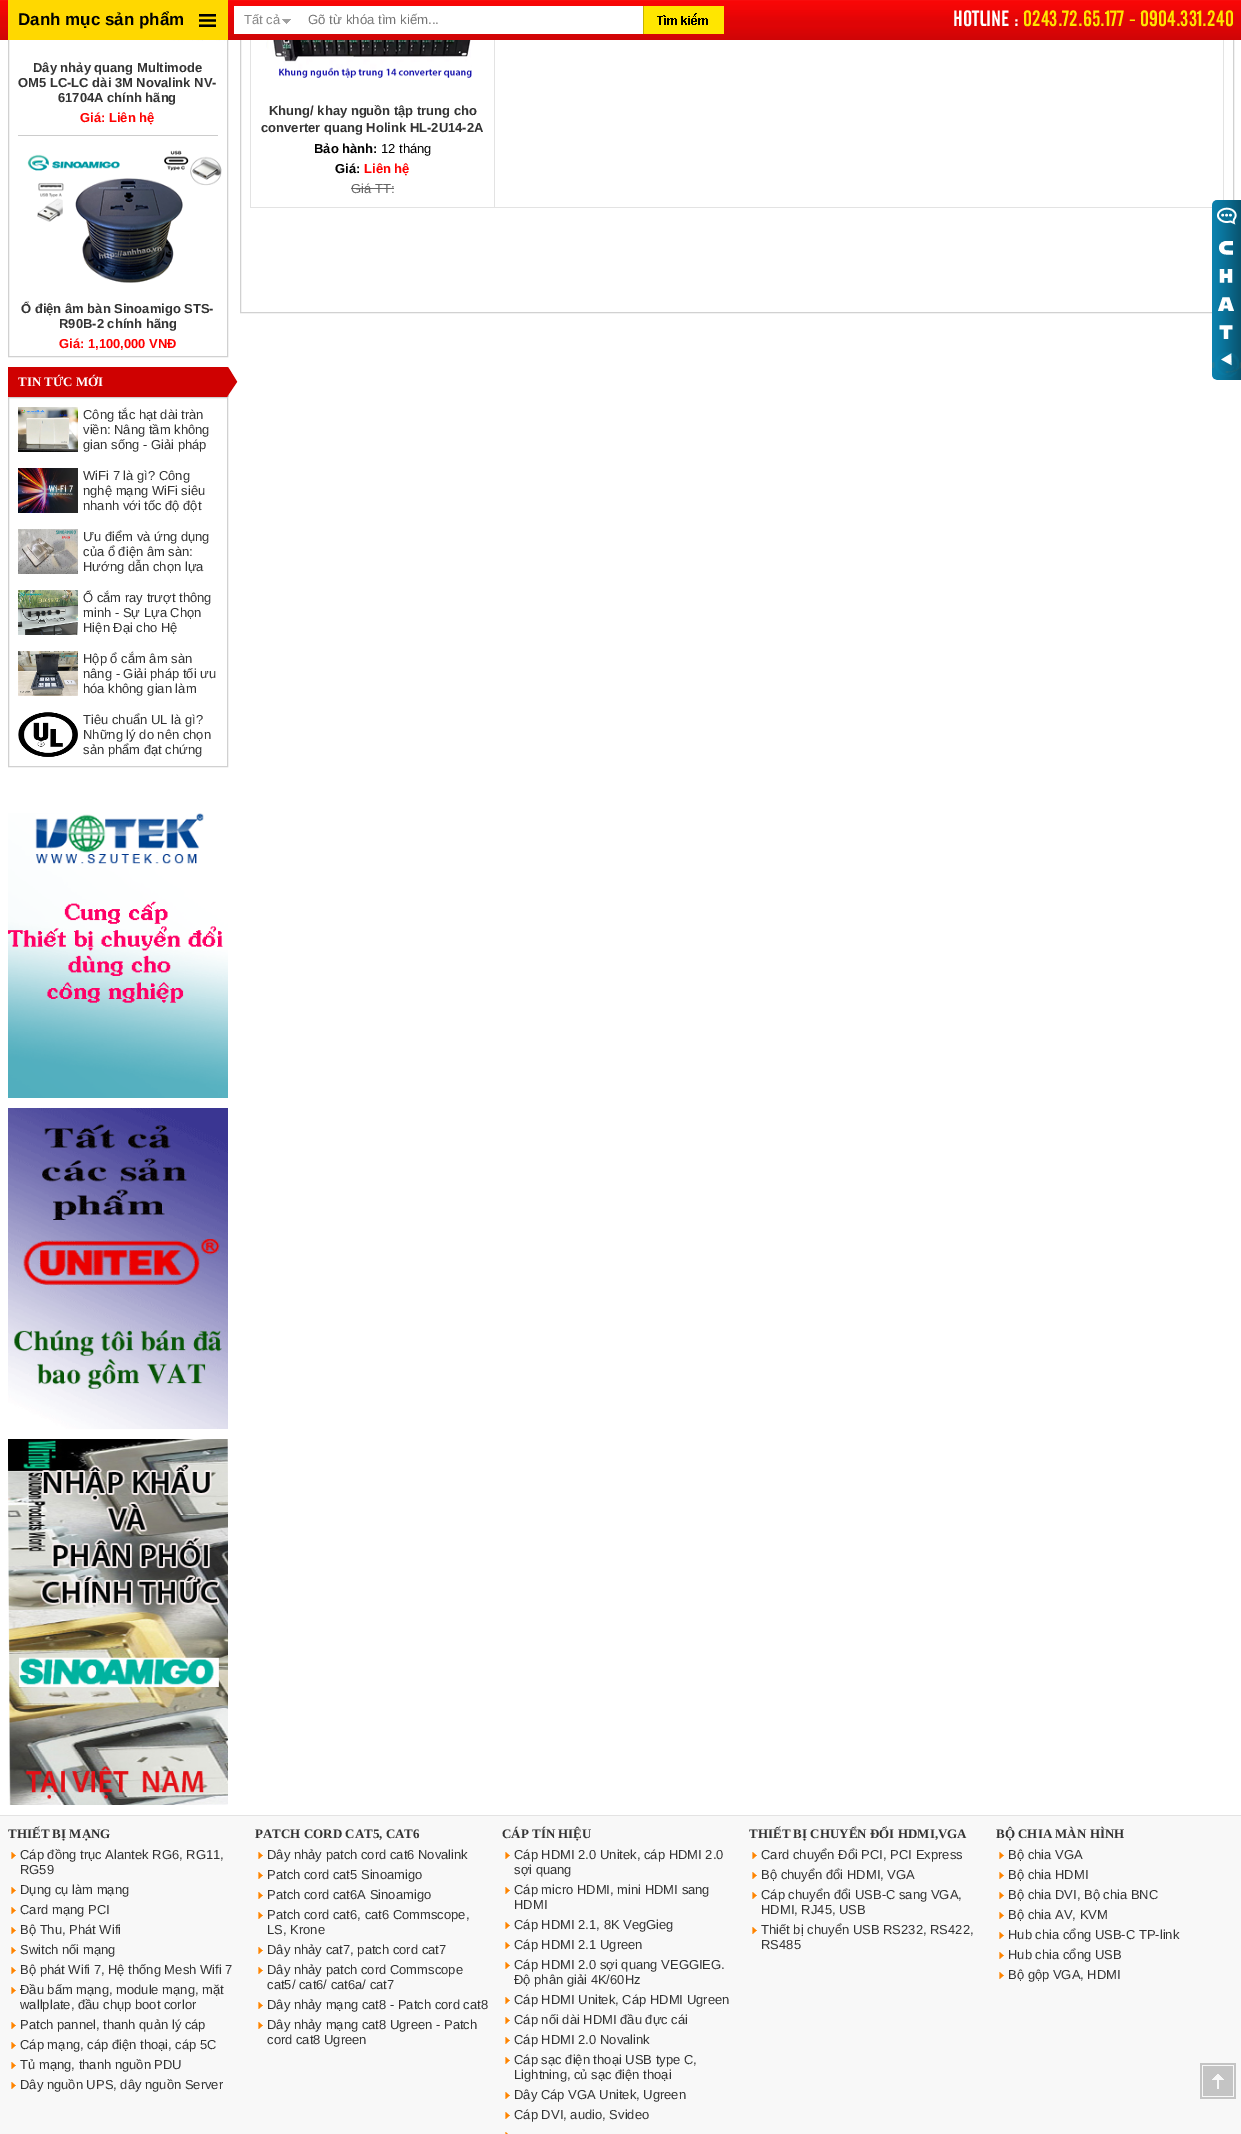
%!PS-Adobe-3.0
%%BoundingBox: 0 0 1241 2134
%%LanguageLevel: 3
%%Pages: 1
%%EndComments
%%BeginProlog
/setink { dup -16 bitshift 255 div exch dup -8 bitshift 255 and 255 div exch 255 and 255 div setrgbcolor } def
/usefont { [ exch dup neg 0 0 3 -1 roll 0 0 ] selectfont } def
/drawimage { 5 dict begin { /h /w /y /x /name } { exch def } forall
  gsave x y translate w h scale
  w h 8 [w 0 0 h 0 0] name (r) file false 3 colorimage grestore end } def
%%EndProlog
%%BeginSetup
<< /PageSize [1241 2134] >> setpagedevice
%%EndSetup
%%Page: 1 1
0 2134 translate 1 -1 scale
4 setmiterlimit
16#FFFFFF setink
0 0 1241 2134 rectfill
16#D1D1D1 setink
8.5 -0.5 219 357 rectstroke
240.5 -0.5 993 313 rectstroke
(img1.raw) 0 0 1241 40 drawimage
16#FFD800 setink
8 0 220 40 rectfill
(img2.raw) 199 14 17 13 drawimage
/LiberationSans-Bold 17 usefont
16#000000 setink
18 25 moveto (Danh mục sản phẩm) show
16#FFFFFF setink
234 6 409 28 rectfill
/LiberationSans-Regular 13 usefont
16#888888 setink
244 24 moveto (Tất cả) show
(img3.raw) 282 19 9 5 drawimage
/LiberationSans-Regular 13.25 usefont
16#757575 setink
308 24 moveto (Gõ từ khóa tìm kiếm...) show
(img4.raw) 643 6 81 28 drawimage
/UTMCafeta-Regular 22 usefont
16#FFFFFF setink
953 26 moveto (HOTLINE :) show
16#FFE600 setink
1023 26 moveto (0243.72.65.177 - 0904.331.240) show
16#CCCCCC setink
18 135 200 1 rectfill
(img5.raw) 53 40 172 1 drawimage
/LiberationSans-Bold 13 usefont
16#333333 setink
[
    [(Dây nhảy quang Multimode) 33 72]
    [(OM5 LC-LC dài 3M Novalink NV-) 18 87]
    [(61704A chính hãng) 58 102]
] { aload pop moveto show } forall
16#FF0000 setink
80 122 moveto (Giá: Liên hệ) show
(img6.raw) 27 150 195 133 drawimage
16#333333 setink
21 313 moveto (Ổ điện âm bàn Sinoamigo STS-) show
59 328 moveto (R90B-2 chính hãng) show
16#FF0000 setink
59 348 moveto (Giá: 1,100,000 VNĐ) show
16#CF0101 setink
8 367 219 30 rectfill
/LiberationSerif-Bold 13 usefont
16#FFFFFF setink
18 386 moveto (TIN TỨC MỚI) show
(img7.raw) 227 367 11 30 drawimage
16#D1D1D1 setink
8.5 397.5 219 369 rectstroke
(img8.raw) 18 407 60 45 drawimage
/LiberationSans-Regular 13 usefont
16#333333 setink
[
    [(Công tắc hạt dài tràn) 83 419]
    [(viền: Nâng tầm không) 83 434]
    [(gian sống - Giải pháp) 83 449]
] { aload pop moveto show } forall
(img9.raw) 18 468 60 45 drawimage
[
    [(WiFi 7 là gì? Công) 83 480]
    [(nghệ mạng WiFi siêu) 83 495]
    [(nhanh với tốc độ đột) 83 510]
] { aload pop moveto show } forall
(img10.raw) 18 529 60 45 drawimage
[
    [(Ưu điểm và ứng dụng) 83 541]
    [(của ổ điện âm sàn:) 83 556]
    [(Hướng dẫn chọn lựa) 83 571]
] { aload pop moveto show } forall
(img11.raw) 18 590 60 45 drawimage
[
    [(Ổ cắm ray trượt thông) 83 602]
    [(minh - Sự Lựa Chọn) 83 617]
    [(Hiện Đại cho Hệ) 83 632]
] { aload pop moveto show } forall
(img12.raw) 18 651 60 45 drawimage
[
    [(Hộp ổ cắm âm sàn) 83 663]
    [(nâng - Giải pháp tối ưu) 83 678]
    [(hóa không gian làm) 83 693]
] { aload pop moveto show } forall
(img13.raw) 18 712 60 45 drawimage
[
    [(Tiêu chuẩn UL là gì?) 83 724]
    [(Những lý do nên chọn) 83 739]
    [(sản phẩm đạt chứng) 83 754]
] { aload pop moveto show } forall
(img14.raw) 8 813 220 285 drawimage
(img15.raw) 8 1108 220 321 drawimage
(img16.raw) 8 1439 220 366 drawimage
[
    [1223 40 1 168 16#E3E3E3]
    [250 207 962 1 16#E3E3E3]
    [250 40 1 168 16#E3E3E3]
    [494 40 1 167 16#E3E3E3]
] { aload pop setink rectfill } forall
(img17.raw) 266 40 208 38 drawimage
/LiberationSans-Bold 13 usefont
16#333333 setink
269 115 moveto (Khung/ khay nguồn tập trung cho) show
261 132 moveto (converter quang Holink HL-2U14-2A) show
16#000000 setink
314 153 moveto (Bảo hành:) show
/LiberationSans-Regular 13 usefont
381 153 moveto (12 tháng) show
/LiberationSans-Bold 13 usefont
335 173 moveto (Giá:) show
16#FF0000 setink
364 173 moveto (Liên hệ) show
/LiberationSans-Regular 13 usefont
16#666666 setink
351 193 moveto (Giá TT:) show
351 188 43 1 rectfill
(img18.raw) 1212 200 29 180 drawimage
16#F8F8F8 setink
0 1816 1241 318 rectfill
16#E3E3E3 setink
0 1815 1241 1 rectfill
gsave
8 1826 247 276 rectclip
/LiberationSerif-Bold 13 usefont
16#333333 setink
8 1838 moveto (THIẾT BỊ MẠNG) show
grestore
(img19.raw) 11 1852 5 7 drawimage
16#333333 setink
20 1859 moveto (Cáp đồng trục Alantek RG6, RG11,) show
20 1874 moveto (RG59) show
(img19.raw) 11 1887 5 7 drawimage
20 1894 moveto (Dụng cụ làm mạng) show
(img19.raw) 11 1907 5 7 drawimage
20 1914 moveto (Card mạng PCI) show
(img19.raw) 11 1927 5 7 drawimage
20 1934 moveto (Bộ Thu, Phát Wifi) show
(img19.raw) 11 1947 5 7 drawimage
20 1954 moveto (Switch nối mạng) show
(img19.raw) 11 1967 5 7 drawimage
20 1974 moveto (Bộ phát Wifi 7, Hệ thống Mesh Wifi 7) show
(img19.raw) 11 1987 5 7 drawimage
20 1994 moveto (Đầu bấm mạng, module mạng, mặt) show
20 2009 moveto (wallplate, đầu chụp boot corlor) show
(img19.raw) 11 2022 5 7 drawimage
20 2029 moveto (Patch pannel, thanh quản lý cáp) show
(img19.raw) 11 2042 5 7 drawimage
20 2049 moveto (Cáp mạng, cáp điện thoại, cáp 5C) show
(img19.raw) 11 2062 5 7 drawimage
20 2069 moveto (Tủ mạng, thanh nguồn PDU) show
(img19.raw) 11 2082 5 7 drawimage
20 2089 moveto (Dây nguồn UPS, dây nguồn Server) show
/LiberationSerif-Bold 13 usefont
255 1838 moveto (PATCH CORD CAT5, CAT6) show
(img19.raw) 258 1852 5 7 drawimage
/LiberationSans-Regular 13 usefont
267 1859 moveto (Dây nhảy patch cord cat6 Novalink) show
(img19.raw) 258 1872 5 7 drawimage
267 1879 moveto (Patch cord cat5 Sinoamigo) show
(img19.raw) 258 1892 5 7 drawimage
267 1899 moveto (Patch cord cat6A Sinoamigo) show
(img19.raw) 258 1912 5 7 drawimage
267 1919 moveto (Patch cord cat6, cat6 Commscope,) show
267 1934 moveto (LS, Krone) show
(img19.raw) 258 1947 5 7 drawimage
267 1954 moveto (Dây nhảy cat7, patch cord cat7) show
(img19.raw) 258 1967 5 7 drawimage
267 1974 moveto (Dây nhảy patch cord Commscope) show
267 1989 moveto (cat5/ cat6/ cat6a/ cat7) show
(img19.raw) 258 2002 5 7 drawimage
267 2009 moveto (Dây nhảy mạng cat8 - Patch cord cat8) show
(img19.raw) 258 2022 5 7 drawimage
267 2029 moveto (Dây nhảy mạng cat8 Ugreen - Patch) show
267 2044 moveto (cord cat8 Ugreen) show
/LiberationSerif-Bold 13 usefont
502 1838 moveto (CÁP TÍN HIỆU) show
(img19.raw) 505 1852 5 7 drawimage
/LiberationSans-Regular 13 usefont
514 1859 moveto (Cáp HDMI 2.0 Unitek, cáp HDMI 2.0) show
514 1874 moveto (sợi quang) show
(img19.raw) 505 1887 5 7 drawimage
514 1894 moveto (Cáp micro HDMI, mini HDMI sang) show
514 1909 moveto (HDMI) show
(img19.raw) 505 1922 5 7 drawimage
514 1929 moveto (Cáp HDMI 2.1, 8K VegGieg) show
(img19.raw) 505 1942 5 7 drawimage
514 1949 moveto (Cáp HDMI 2.1 Ugreen) show
(img19.raw) 505 1962 5 7 drawimage
514 1969 moveto (Cáp HDMI 2.0 sợi quang VEGGIEG.) show
514 1984 moveto (Độ phân giải 4K/60Hz) show
(img19.raw) 505 1997 5 7 drawimage
514 2004 moveto (Cáp HDMI Unitek, Cáp HDMI Ugreen) show
(img19.raw) 505 2017 5 7 drawimage
514 2024 moveto (Cáp nối dài HDMI đầu đực cái) show
(img19.raw) 505 2037 5 7 drawimage
514 2044 moveto (Cáp HDMI 2.0 Novalink) show
(img19.raw) 505 2057 5 7 drawimage
514 2064 moveto (Cáp sạc điện thoại USB type C,) show
514 2079 moveto (Lightning, củ sạc điện thoại) show
(img19.raw) 505 2092 5 7 drawimage
514 2099 moveto (Dây Cáp VGA Unitek, Ugreen) show
(img19.raw) 505 2112 5 7 drawimage
514 2119 moveto (Cáp DVI, audio, Svideo) show
(img20.raw) 505 2132 3 2 drawimage
gsave
749 1826 247 136 rectclip
/LiberationSerif-Bold 13 usefont
749 1838 moveto (THIẾT BỊ CHUYỂN ĐỔI HDMI,VGA) show
grestore
(img19.raw) 752 1852 5 7 drawimage
761 1859 moveto (Card chuyển Đổi PCI, PCI Express) show
(img19.raw) 752 1872 5 7 drawimage
761 1879 moveto (Bộ chuyển đổi HDMI, VGA) show
(img19.raw) 752 1892 5 7 drawimage
761 1899 moveto (Cáp chuyển đổi USB-C sang VGA,) show
761 1914 moveto (HDMI, RJ45, USB) show
(img19.raw) 752 1927 5 7 drawimage
761 1934 moveto (Thiết bị chuyển USB RS232, RS422,) show
761 1949 moveto (RS485) show
/LiberationSerif-Bold 13 usefont
996 1838 moveto (BỘ CHIA MÀN HÌNH) show
(img19.raw) 999 1852 5 7 drawimage
/LiberationSans-Regular 13 usefont
1008 1859 moveto (Bộ chia VGA) show
(img19.raw) 999 1872 5 7 drawimage
1008 1879 moveto (Bộ chia HDMI) show
(img19.raw) 999 1892 5 7 drawimage
1008 1899 moveto (Bộ chia DVI, Bộ chia BNC) show
(img19.raw) 999 1912 5 7 drawimage
1008 1919 moveto (Bộ chia AV, KVM) show
(img19.raw) 999 1932 5 7 drawimage
1008 1939 moveto (Hub chia cổng USB-C TP-link) show
(img19.raw) 999 1952 5 7 drawimage
1008 1959 moveto (Hub chia cổng USB) show
(img19.raw) 999 1972 5 7 drawimage
1008 1979 moveto (Bộ gộp VGA, HDMI) show
(img21.raw) 1200 2063 36 36 drawimage
showpage
%%EOF
